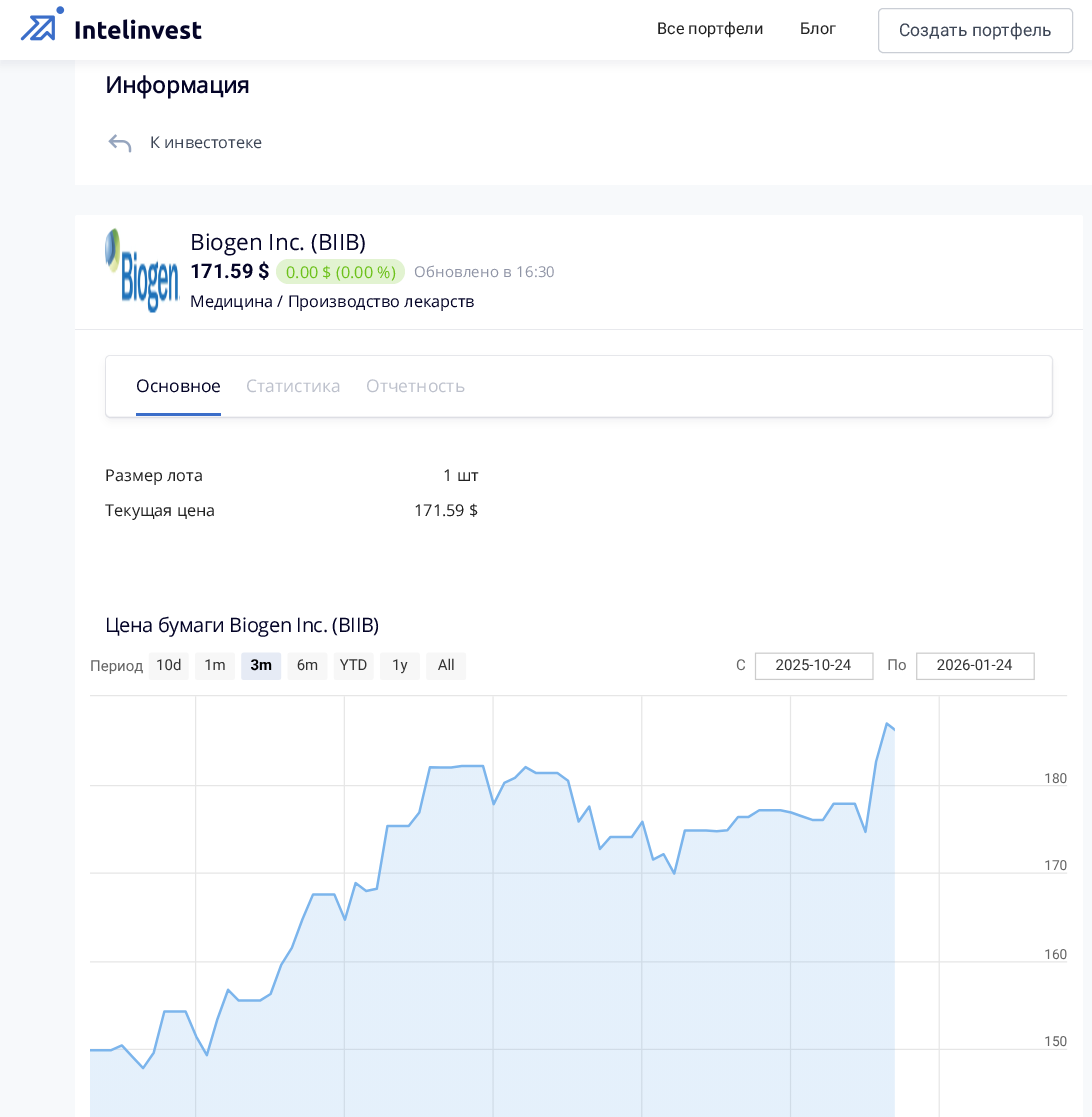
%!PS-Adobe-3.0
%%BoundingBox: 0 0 1092 1117
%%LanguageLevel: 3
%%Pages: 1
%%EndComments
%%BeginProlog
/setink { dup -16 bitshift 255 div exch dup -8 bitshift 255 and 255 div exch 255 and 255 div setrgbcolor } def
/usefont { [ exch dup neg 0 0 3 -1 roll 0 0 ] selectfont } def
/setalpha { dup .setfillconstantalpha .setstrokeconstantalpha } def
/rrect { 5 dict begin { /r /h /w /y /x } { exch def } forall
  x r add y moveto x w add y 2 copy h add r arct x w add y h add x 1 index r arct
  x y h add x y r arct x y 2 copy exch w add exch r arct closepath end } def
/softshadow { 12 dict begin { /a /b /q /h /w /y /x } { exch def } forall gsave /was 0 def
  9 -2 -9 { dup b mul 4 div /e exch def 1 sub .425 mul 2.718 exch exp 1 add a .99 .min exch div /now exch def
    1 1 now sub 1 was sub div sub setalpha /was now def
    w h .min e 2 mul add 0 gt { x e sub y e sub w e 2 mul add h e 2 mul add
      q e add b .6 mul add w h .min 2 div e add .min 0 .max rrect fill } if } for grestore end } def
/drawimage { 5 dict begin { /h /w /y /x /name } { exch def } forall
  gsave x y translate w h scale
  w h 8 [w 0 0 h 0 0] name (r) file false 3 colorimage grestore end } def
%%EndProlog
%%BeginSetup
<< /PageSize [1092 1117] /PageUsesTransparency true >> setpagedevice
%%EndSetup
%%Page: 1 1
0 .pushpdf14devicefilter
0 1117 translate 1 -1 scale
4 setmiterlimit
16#F7F9FB setink
0 0 1092 1117 rectfill
16#FFFFFF setink
75 60 1017 125 rectfill
16#040427 setink
0 5 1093 60 0 4.5 0.05 softshadow
16#FFFFFF setink
0 0 1092 60 rectfill
(img1.raw) 20 6 182 35 drawimage
/Roboto-Regular 16.25 usefont
16#212121 setink
657 34 moveto (Все портфели) show
800 34 moveto (Блог) show
16#CACED5 setink
878.5 8.5 194 44 4.5 rrect stroke
/Roboto-Regular 17.5 usefont
16#3D4656 setink
899 36 moveto (Создать портфель) show
/OpenSans-Bold 22.5 usefont
16#040427 setink
105 93 moveto (Информация) show
(img2.raw) 108 134 24 19 drawimage
/OpenSans-Regular 16.25 usefont
16#3D4656 setink
150 148 moveto (К инвестотеке) show
16#FFFFFF setink
75 215 1008 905 2.5 rrect fill
16#E8E9ED setink
75 329 1008 1 rectfill
(img3.raw) 105 227 75 86 drawimage
/OpenSans-Regular 22.5 usefont
16#040427 setink
190 250 moveto (Biogen Inc. \(BIIB\)) show
/Roboto-Bold 20 usefont
190 278 moveto (171.59 $) show
16#E2F3D1 setink
276 259 129 25 12.5 rrect fill
/OpenSans-Regular 16.25 usefont
16#6CC11A setink
286 278 moveto (0.00 $ \(0.00 %\)) show
/OpenSans-Regular 15 usefont
16#9095A6 setink
414 277 moveto 0.2 0 (Обновлено в 16:30) ashow
/OpenSans-Regular 16.25 usefont
16#040427 setink
190 307 moveto (Медицина / Производство лекарств) show
16#E8E9ED setink
105.5 355.5 947 62 4.5 rrect stroke
16#040427 setink
106 361 945 60 5 4.5 0.05 softshadow
16#FFFFFF setink
106 356 945 60 5 rrect fill
/OpenSans-Regular 17.5 usefont
16#040427 setink
136 392 moveto (Основное) show
16#3B6EC9 setink
136 413 85 3 rectfill
16#BDC1CC setink
246 392 moveto (Статистика) show
366 392 moveto (Отчетность) show
/OpenSans-Regular 16.25 usefont
16#212121 setink
[
    [(Размер лота) 105 481]
    [(1 шт) 443 481]
    [(Текущая цена) 105 516]
    [(171.59 $) 414 516]
] { aload pop moveto show } forall
/OpenSans-Regular 20 usefont
16#040427 setink
105 632 moveto -0.4 0 (Цена бумаги Biogen Inc. \(BIIB\)) ashow
(img4.raw) 90 652 978 465 drawimage
.poppdf14devicefilter showpage
%%EOF
